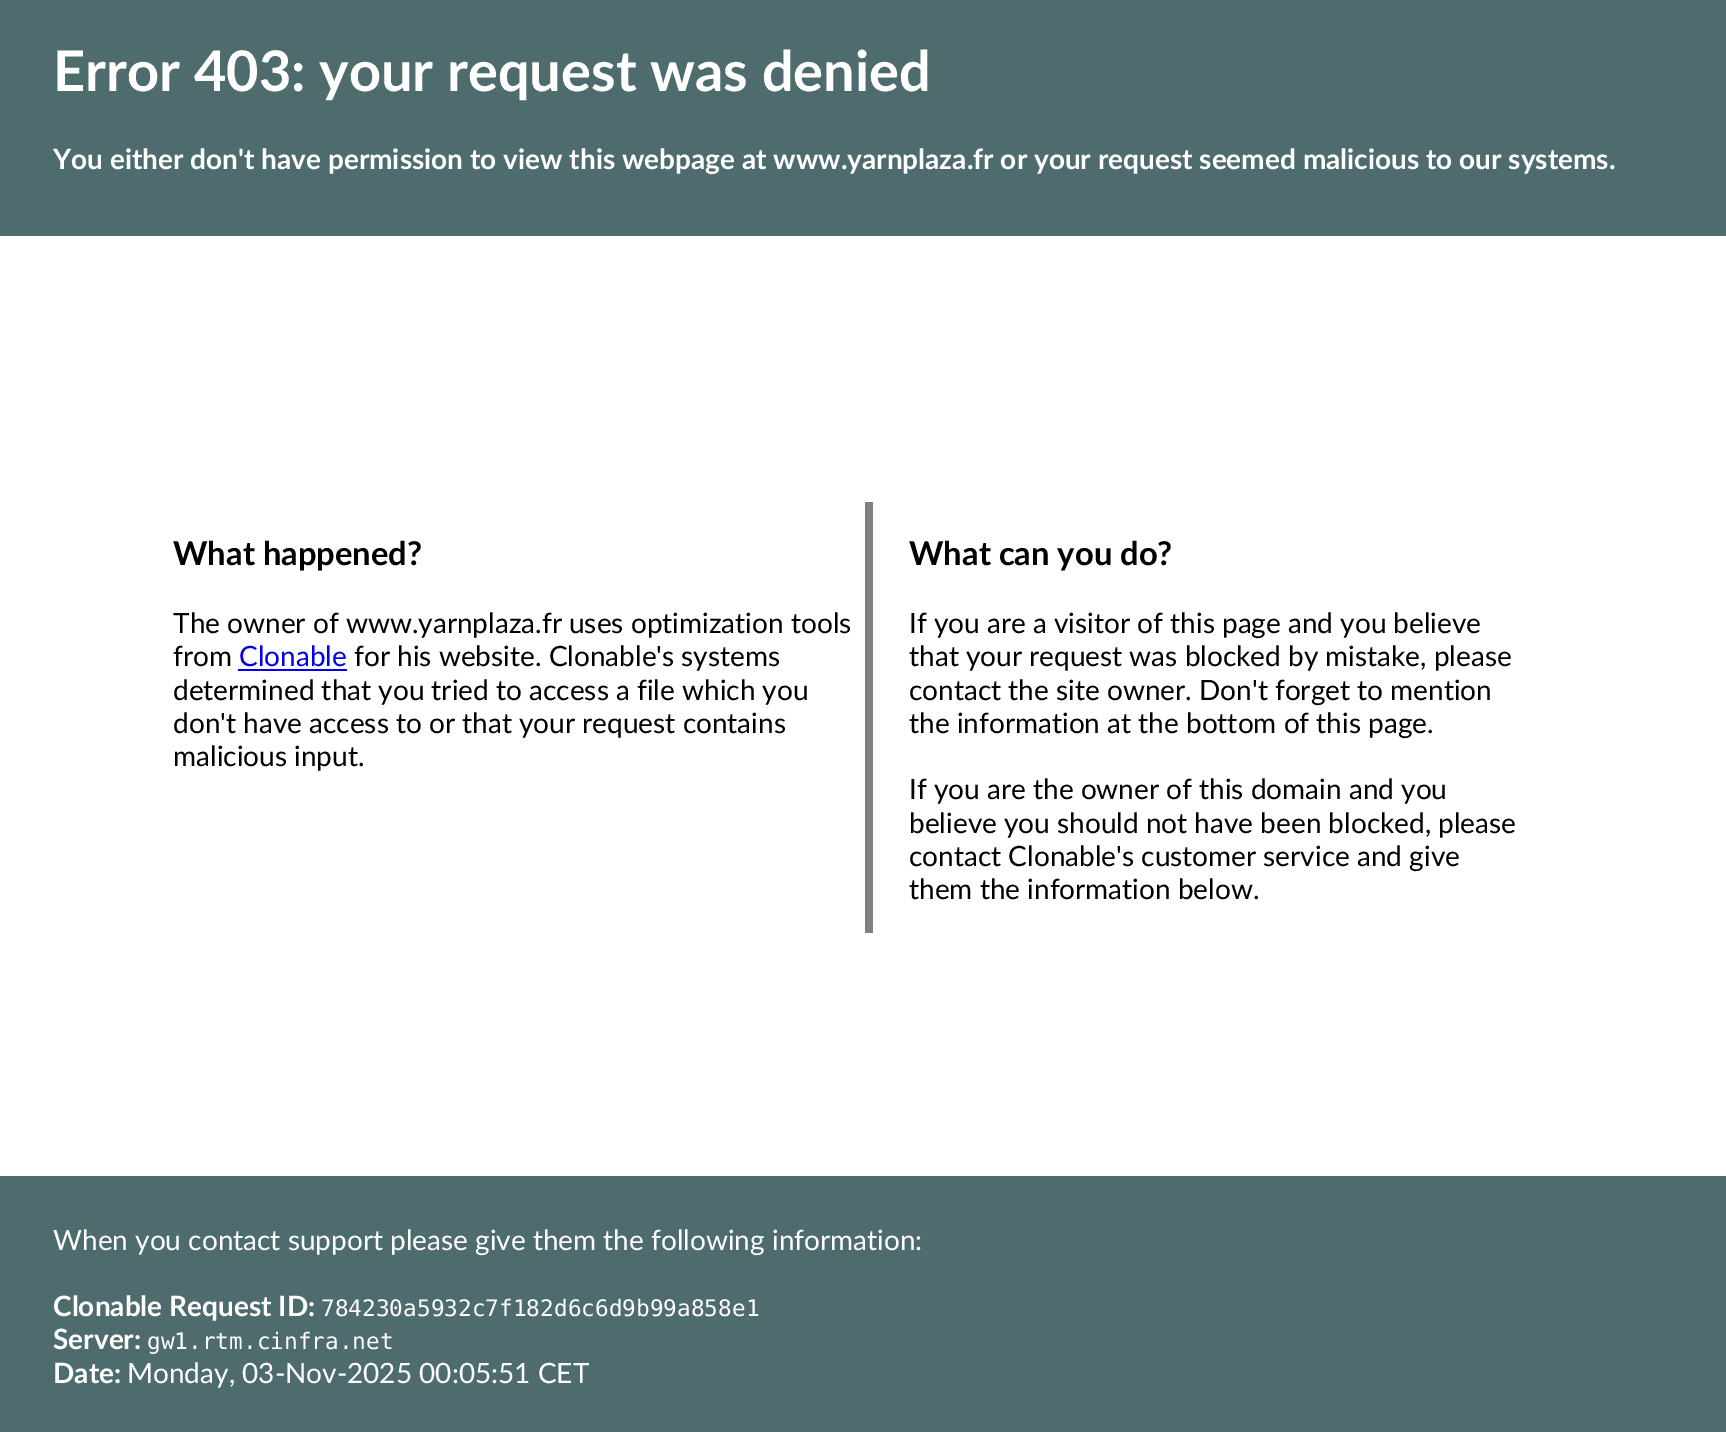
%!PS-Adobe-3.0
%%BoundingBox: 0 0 1726 1432
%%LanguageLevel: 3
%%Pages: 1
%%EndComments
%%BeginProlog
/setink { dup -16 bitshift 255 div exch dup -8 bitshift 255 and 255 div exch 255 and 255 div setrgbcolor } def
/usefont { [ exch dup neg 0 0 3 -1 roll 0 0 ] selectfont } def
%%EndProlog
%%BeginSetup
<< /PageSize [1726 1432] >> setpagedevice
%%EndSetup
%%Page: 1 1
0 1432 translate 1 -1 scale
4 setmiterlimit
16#FFFFFF setink
0 0 1726 1432 rectfill
16#4E6C6D setink
0 0 1726 236 rectfill
/Lato-Bold 56 usefont
16#FFFFFF setink
53 91 moveto (Error 403: your request was denied) show
/Lato-Bold 28 usefont
53 169 moveto (You either don't have permission to view this webpage at www.yarnplaza.fr or your request seemed malicious to our systems.) show
16#808080 setink
865 502 8 431 rectfill
/Lato-Bold 32.75 usefont
16#000000 setink
173 565 moveto (What happened?) show
/Lato-Regular 28 usefont
173 633 moveto (The owner of www.yarnplaza.fr uses optimization tools) show
173 666 moveto (from) show
16#0000EE setink
239 666 moveto (Clonable) show
238 669 109 2 rectfill
16#000000 setink
[
    [(for his website. Clonable's systems) 354 666]
    [(determined that you tried to access a file which you) 173 700]
    [(don't have access to or that your request contains) 173 733]
    [(malicious input.) 173 766]
] { aload pop moveto show } forall
/Lato-Bold 32.75 usefont
909 565 moveto (What can you do?) show
/Lato-Regular 28 usefont
[
    [(If you are a visitor of this page and you believe) 909 633]
    [(that your request was blocked by mistake, please) 909 666]
    [(contact the site owner. Don't forget to mention) 909 700]
    [(the information at the bottom of this page.) 909 733]
    [(If you are the owner of this domain and you) 909 799]
    [(believe you should not have been blocked, please) 909 833]
    [(contact Clonable's customer service and give) 909 866]
    [(them the information below.) 909 899]
] { aload pop moveto show } forall
16#4E6C6D setink
0 1176 1726 256 rectfill
16#FFFFFF setink
53 1250 moveto (When you contact support please give them the following information:) show
/Lato-Bold 28 usefont
53 1316 moveto (Clonable Request ID:) show
/DejaVuSansMono-Regular 22.75 usefont
321 1316 moveto (784230a5932c7f182d6c6d9b99a858e1) show
/Lato-Bold 28 usefont
53 1349 moveto (Server:) show
/DejaVuSansMono-Regular 22.75 usefont
147 1349 moveto (gw1.rtm.cinfra.net) show
/Lato-Bold 28 usefont
53 1383 moveto (Date:) show
/Lato-Regular 28 usefont
127 1383 moveto (Monday, 03-Nov-2025 00:05:51 CET) show
showpage
%%EOF
